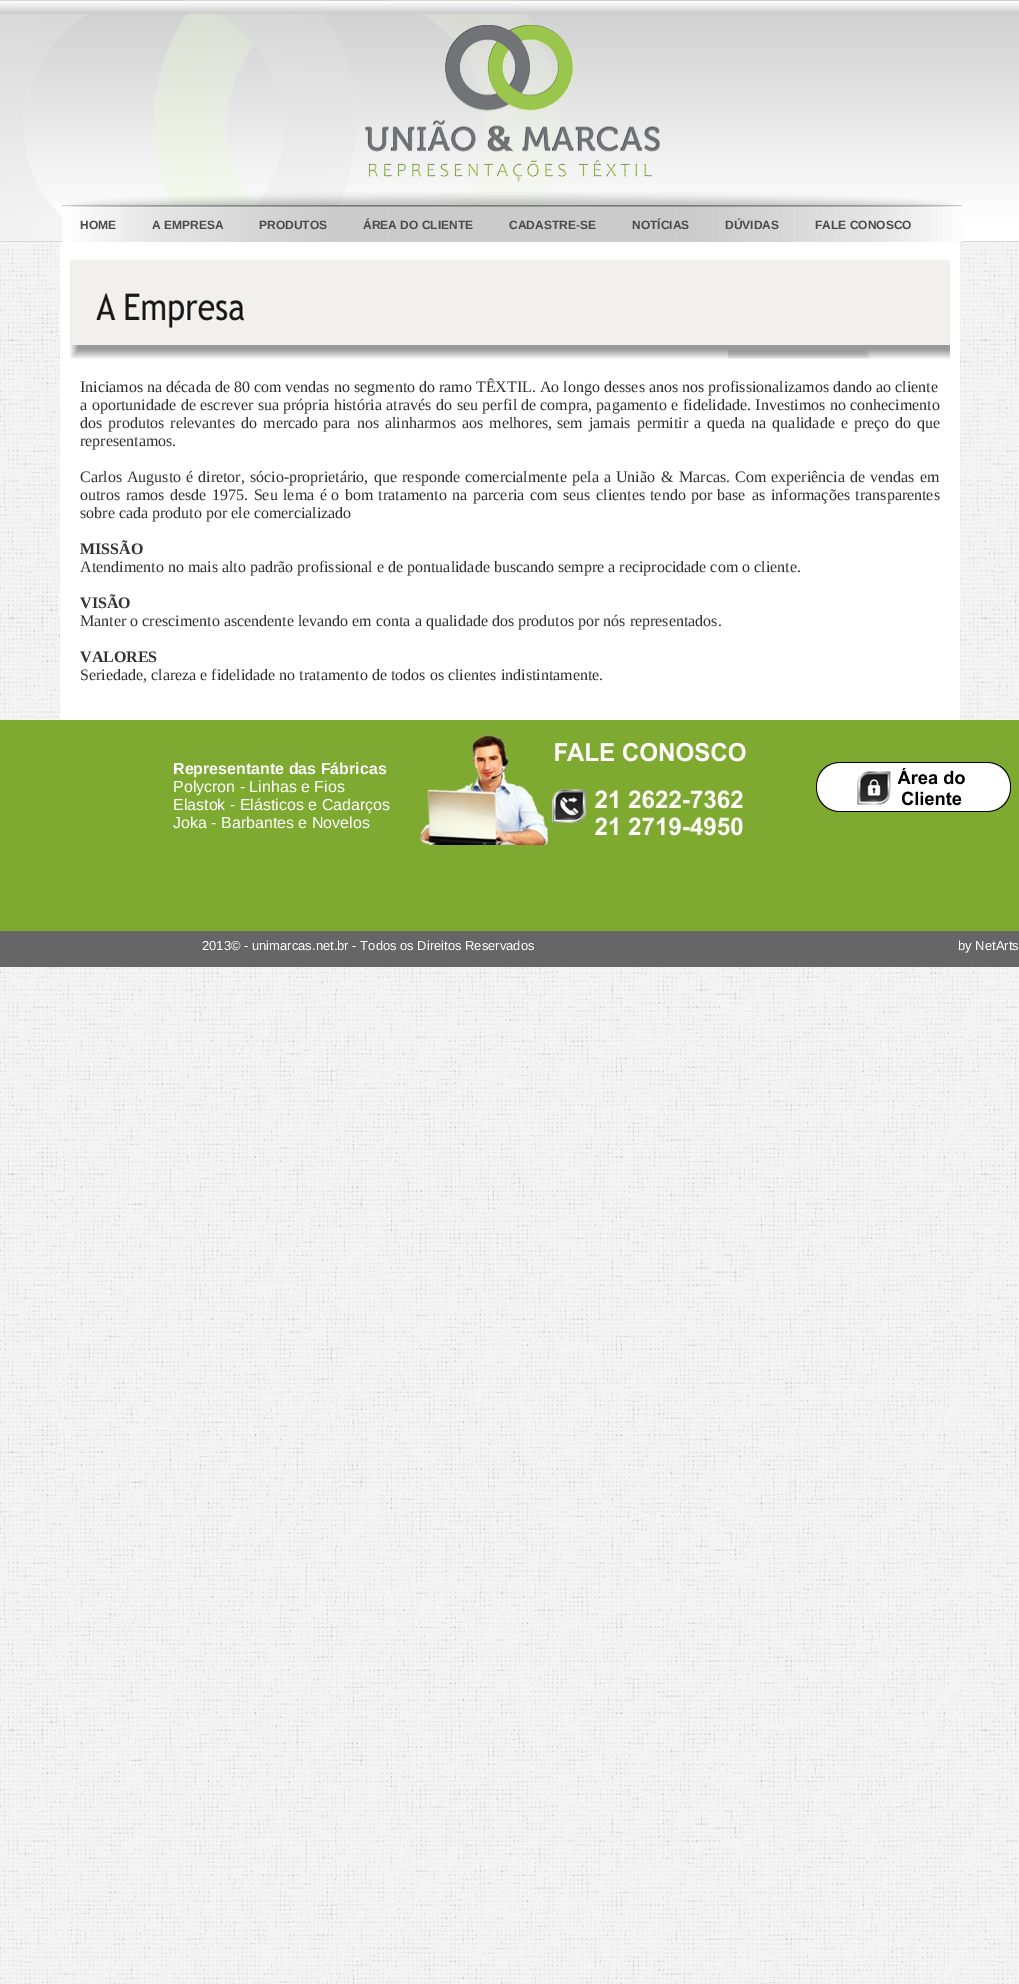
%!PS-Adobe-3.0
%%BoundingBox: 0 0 1019 1984
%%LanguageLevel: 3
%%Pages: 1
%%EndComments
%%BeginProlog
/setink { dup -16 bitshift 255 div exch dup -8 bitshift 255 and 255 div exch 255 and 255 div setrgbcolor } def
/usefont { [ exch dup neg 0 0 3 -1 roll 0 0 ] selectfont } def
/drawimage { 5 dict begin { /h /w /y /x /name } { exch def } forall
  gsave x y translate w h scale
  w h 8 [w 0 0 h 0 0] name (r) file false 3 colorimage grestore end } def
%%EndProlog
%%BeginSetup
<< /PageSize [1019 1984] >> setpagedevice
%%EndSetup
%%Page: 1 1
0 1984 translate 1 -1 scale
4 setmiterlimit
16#FFFFFF setink
0 0 1019 1984 rectfill
(img1.raw) 0 242 1019 1742 drawimage
(img2.raw) 0 0 1019 242 drawimage
(img3.raw) 365 25 295 157 drawimage
(img4.raw) 62 192 900 50 drawimage
/LiberationSans-Bold 12 usefont
16#4A4A4A setink
[
    [(HOME) 80 229]
    [(A EMPRESA) 152 229]
    [(PRODUTOS) 259 229]
    [(ÁREA DO CLIENTE) 363 229]
    [(CADASTRE-SE) 509 229]
    [(NOTÍCIAS) 632 229]
    [(DÚVIDAS) 725 229]
    [(FALE CONOSCO) 815 229]
] { aload pop moveto show } forall
16#FFFFFF setink
60 242 900 478 rectfill
(img5.raw) 70 260 880 99 drawimage
/LiberationSerif-Regular 16 usefont
16#333333 setink
80 392 moveto (Iniciamos na década de 80 com vendas no segmento do ramo TÊXTIL. Ao longo desses anos nos profissionalizamos dando ao cliente) show
80 410 moveto 0.5 0 32 (a oportunidade de escrever sua) widthshow
283 410 moveto 0.5 0 32 (própria história através do seu perfil de) widthshow
540 410 moveto 0.5 0 32 (compra, pagamento e fidelidade. Investimos no) widthshow
850 410 moveto (conhecimento) show
80 428 moveto 2 0 32 (dos produtos relevantes do mercado) widthshow
323 428 moveto 2 0 32 (para nos alinharmos aos melhores,) widthshow
557 428 moveto 2 0 32 (sem jamais permitir a queda na qualidade e preço) widthshow
895 428 moveto 2 0 32 (do que) widthshow
80 446 moveto (representamos.) show
80 482 moveto 1 0 32 (Carlos Augusto é diretor, sócio-proprietário,) widthshow
374 482 moveto 1 0 32 (que responde comercialmente pela a União) widthshow
661 482 moveto (&) show
679 482 moveto 1 0 32 (Marcas. Com experiência) widthshow
850 482 moveto 1 0 32 (de vendas em) widthshow
80 500 moveto 1.5 0 32 (outros ramos desde 1975. Seu lema é) widthshow
331 500 moveto 1.5 0 32 (o bom tratamento na parceria com seus clientes) widthshow
650 500 moveto 1 0 32 (tendo por base) widthshow
752 500 moveto 1.5 0 32 (as informações transparentes) widthshow
80 518 moveto (sobre cada produto por ele comercializado) show
/LiberationSerif-Bold 16 usefont
80 554 moveto (MISSÃO) show
/LiberationSerif-Regular 16 usefont
80 572 moveto (Atendimento no mais alto padrão profissional e de pontualidade buscando sempre a reciprocidade com o cliente.) show
/LiberationSerif-Bold 16 usefont
80 608 moveto (VISÃO) show
/LiberationSerif-Regular 16 usefont
80 626 moveto (Manter o crescimento ascendente levando em conta a qualidade dos produtos por nós representados.) show
/LiberationSerif-Bold 16 usefont
80 662 moveto (VALORES) show
/LiberationSerif-Regular 16 usefont
80 680 moveto (Seriedade, clareza e fidelidade no tratamento de todos os clientes indistintamente.) show
(img6.raw) 0 720 1019 247 drawimage
/LiberationSans-Bold 16 usefont
16#FFFFFF setink
173 774 moveto (Representante das Fábricas) show
/LiberationSans-Regular 16 usefont
[
    [(Polycron - Linhas e Fios) 173 792]
    [(Elastok - Elásticos e Cadarços) 173 810]
    [(Joka - Barbantes e Novelos) 173 828]
] { aload pop moveto show } forall
(img7.raw) 417 733 332 114 drawimage
(img8.raw) 816 762 195 50 drawimage
/LiberationSans-Regular 13 usefont
202 950 moveto (2013© - unimarcas.net.br - Todos os Direitos Reservados) show
958 950 moveto (by NetArts) show
showpage
%%EOF
